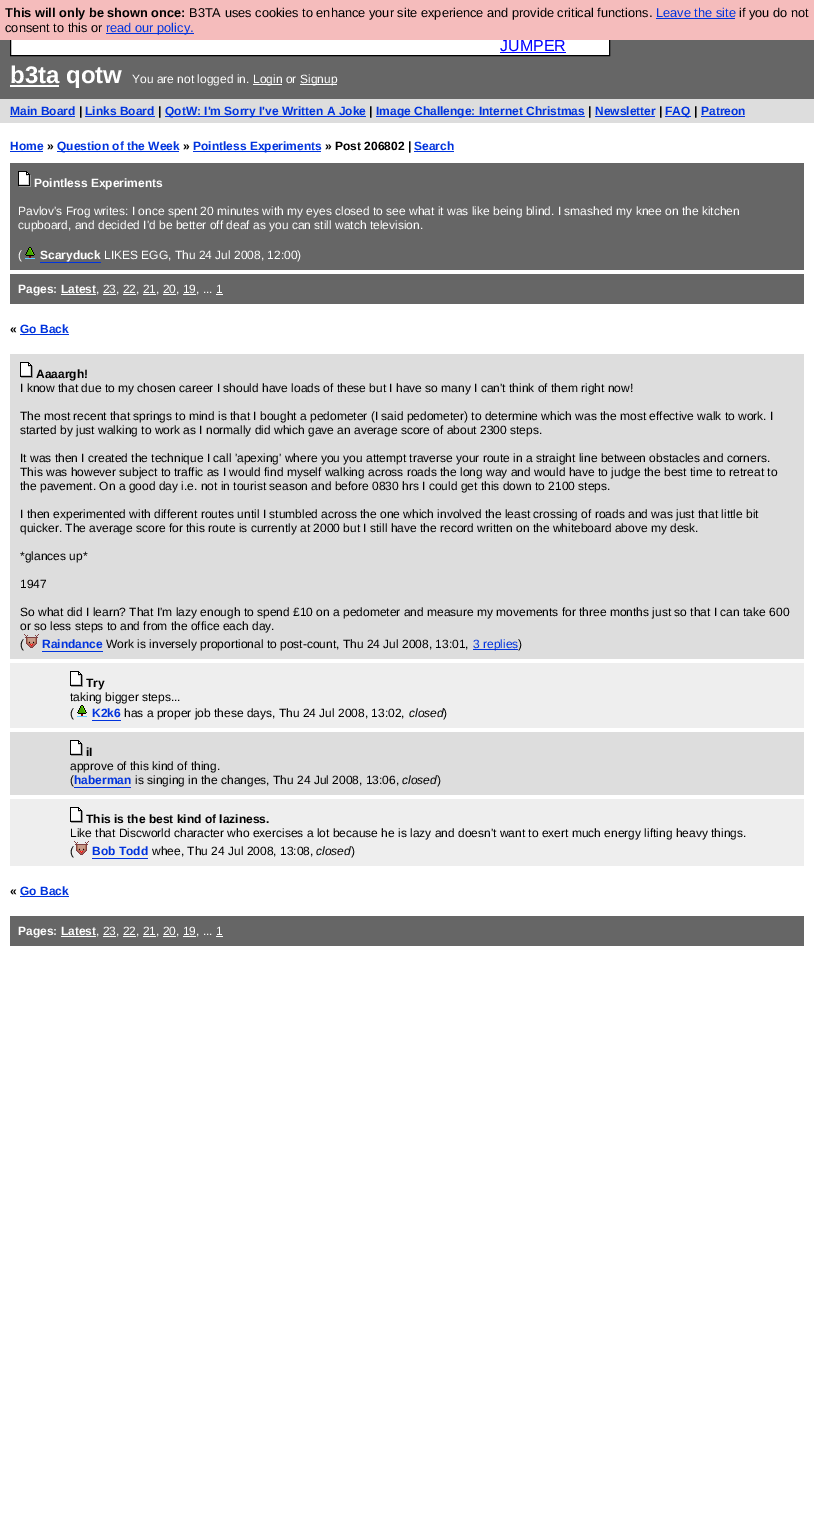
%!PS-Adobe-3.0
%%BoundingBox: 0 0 814 1519
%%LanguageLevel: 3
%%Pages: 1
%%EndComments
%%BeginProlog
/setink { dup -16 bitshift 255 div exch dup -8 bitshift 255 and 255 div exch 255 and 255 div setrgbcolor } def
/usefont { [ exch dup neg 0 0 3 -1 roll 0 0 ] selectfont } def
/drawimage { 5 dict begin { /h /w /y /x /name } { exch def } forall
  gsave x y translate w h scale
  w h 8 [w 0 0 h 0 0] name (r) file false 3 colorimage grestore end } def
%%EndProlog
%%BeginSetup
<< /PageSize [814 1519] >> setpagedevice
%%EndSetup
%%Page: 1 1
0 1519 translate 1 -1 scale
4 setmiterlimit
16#FFFFFF setink
0 0 814 1519 rectfill
16#666666 setink
0 40 814 59 rectfill
16#FFFFFF setink
11 40 598 15 rectfill
16#000000 setink
10.5 10.5 599 45 rectstroke
16#F5BCBC setink
0 0 814 40 rectfill
/LiberationSans-Bold 12.8 usefont
16#000000 setink
5 17 moveto (This will only be shown once:) show
/LiberationSans-Regular 12.8 usefont
189 17 moveto (B3TA uses cookies to enhance your site experience and provide critical functions.) show
16#0033DD setink
656 17 moveto (Leave the site) show
656 18 79 1 rectfill
16#000000 setink
739 17 moveto (if you do not) show
5 32 moveto (consent to this or) show
16#0033DD setink
106 33 88 1 rectfill
106 32 moveto (read our policy.) show
/LiberationSans-Regular 16 usefont
16#0000FF setink
500 51 moveto (JUMPER) show
500 52 66 1 rectfill
16#FFFFFF setink
10 85 49 2 rectfill
/LiberationSans-Bold 24 usefont
10 83 moveto (b3ta qotw) show
/LiberationSans-Regular 12 usefont
132 83 moveto (You are not logged in.) show
253 84 29 1 rectfill
253 83 moveto (Login or) show
300 84 37 1 rectfill
300 83 moveto (Signup) show
16#DDDDDD setink
0 99 814 24 rectfill
/LiberationSans-Bold 12 usefont
16#0033DD setink
10 115 moveto (Main Board) show
10 116 65 1 rectfill
16#000000 setink
79 115 moveto (|) show
16#0033DD setink
85 115 moveto (Links Board) show
85 116 70 1 rectfill
16#000000 setink
158 115 moveto (|) show
16#0033DD setink
165 116 201 1 rectfill
165 115 moveto (QotW: I'm Sorry I've Written A Joke) show
16#000000 setink
369 115 moveto (|) show
16#0033DD setink
376 116 209 1 rectfill
376 115 moveto (Image Challenge: Internet Christmas) show
16#000000 setink
588 115 moveto (|) show
16#0033DD setink
595 115 moveto (Newsletter) show
595 116 60 1 rectfill
16#000000 setink
659 115 moveto (|) show
16#0033DD setink
665 116 26 1 rectfill
665 115 moveto (FAQ) show
16#000000 setink
694 115 moveto (|) show
16#0033DD setink
701 115 moveto (Patreon) show
701 116 44 1 rectfill
10 150 moveto (Home) show
10 151 33 1 rectfill
16#000000 setink
47 150 moveto (») show
16#0033DD setink
57 151 122 1 rectfill
57 150 moveto (Question of the Week) show
16#000000 setink
183 150 moveto (») show
16#0033DD setink
193 151 128 1 rectfill
193 150 moveto (Pointless Experiments) show
16#000000 setink
325 150 moveto (» Post 206802 |) show
16#0033DD setink
414 150 moveto (Search) show
414 151 40 1 rectfill
16#666666 setink
10 163 794 107 rectfill
(img1.raw) 18 171 13 16 drawimage
16#FFFFFF setink
34 187 moveto (Pointless Experiments) show
/LiberationSans-Regular 12 usefont
[
    [(Pavlov's Frog writes: I once spent 20 minutes with my eyes closed to see what it was like being blind. I smashed my knee on the kitchen) 18 215]
    [(cupboard, and decided I'd be better off deaf as you can still watch television.) 18 229]
    [(\() 18 259]
] { aload pop moveto show } forall
(img2.raw) 25 247 10 12 drawimage
/LiberationSans-Bold 12 usefont
40 259 moveto (Scaryduck) show
16#0033DD setink
40 262 61 1 rectfill
/LiberationSans-Regular 12 usefont
16#FFFFFF setink
104 259 moveto (LIKES EGG, Thu 24 Jul 2008, 12:00\)) show
16#666666 setink
10 274 794 30 rectfill
/LiberationSans-Bold 12 usefont
16#FFFFFF setink
18 293 moveto (Pages: Latest) show
/LiberationSans-Regular 12 usefont
96 293 moveto (, 23, 22, 21, 20, 19, ... 1) show
[
    [61 294 35 1 16#FFFFFF]
    [103 294 13 1 16#FFFFFF]
    [123 294 13 1 16#FFFFFF]
    [143 294 13 1 16#FFFFFF]
    [163 294 13 1 16#FFFFFF]
    [183 294 13 1 16#FFFFFF]
    [216 294 7 1 16#FFFFFF]
] { aload pop setink rectfill } forall
/LiberationSans-Bold 12 usefont
16#000000 setink
10 333 moveto («) show
16#0033DD setink
20 333 moveto (Go Back) show
20 334 49 1 rectfill
16#DDDDDD setink
10 354 794 305 rectfill
(img3.raw) 20 362 13 16 drawimage
16#000000 setink
36 378 moveto (Aaaargh!) show
/LiberationSans-Regular 12 usefont
[
    [(I know that due to my chosen career I should have loads of these but I have so many I can't think of them right now!) 20 392]
    [(The most recent that springs to mind is that I bought a pedometer \(I said pedometer\) to determine which was the most effective walk to work. I) 20 420]
    [(started by just walking to work as I normally did which gave an average score of about 2300 steps.) 20 434]
    [(It was then I created the technique I call 'apexing' where you you attempt traverse your route in a straight line between obstacles and corners.) 20 462]
    [(This was however subject to traffic as I would find myself walking across roads the long way and would have to judge the best time to retreat to) 20 476]
    [(the pavement. On a good day i.e. not in tourist season and before 0830 hrs I could get this down to 2100 steps.) 20 490]
    [(I then experimented with different routes until I stumbled across the one which involved the least crossing of roads and was just that little bit) 20 518]
    [(quicker. The average score for this route is currently at 2000 but I still have the record written on the whiteboard above my desk.) 20 532]
    [(*glances up*) 20 560]
    [(1947) 20 588]
    [(So what did I learn? That I'm lazy enough to spend £10 on a pedometer and measure my movements for three months just so that I can take 600) 20 616]
    [(or so less steps to and from the office each day.) 20 630]
    [(\() 20 648]
] { aload pop moveto show } forall
(img4.raw) 24 634 15 14 drawimage
/LiberationSans-Bold 12 usefont
16#0033DD setink
42 648 moveto (Raindance) show
42 651 61 1 rectfill
/LiberationSans-Regular 12 usefont
16#000000 setink
106 648 moveto (Work is inversely proportional to post-count, Thu 24 Jul 2008, 13:01,) show
16#0033DD setink
473 649 45 1 rectfill
473 648 moveto (3 replies) show
16#000000 setink
518 648 moveto (\)) show
16#EEEEEE setink
10 663 794 65 rectfill
(img5.raw) 70 671 13 16 drawimage
/LiberationSans-Bold 12 usefont
16#000000 setink
86 687 moveto (Try) show
/LiberationSans-Regular 12 usefont
70 701 moveto (taking bigger steps...) show
70 717 moveto (\() show
(img6.raw) 77 705 10 12 drawimage
/LiberationSans-Bold 12 usefont
16#0033DD setink
92 717 moveto (K2k6) show
92 720 29 1 rectfill
/LiberationSans-Regular 12 usefont
16#000000 setink
124 717 moveto (has a proper job these days, Thu 24 Jul 2008, 13:02,) show
/LiberationSans-Italic 12 usefont
409 717 moveto (closed) show
/LiberationSans-Regular 12 usefont
443 717 moveto (\)) show
16#DDDDDD setink
10 732 794 63 rectfill
(img3.raw) 70 740 13 16 drawimage
/LiberationSans-Bold 12 usefont
16#000000 setink
86 756 moveto (iI) show
/LiberationSans-Regular 12 usefont
70 770 moveto (approve of this kind of thing.) show
70 784 moveto (\() show
/LiberationSans-Bold 12 usefont
16#0033DD setink
74 784 moveto (haberman) show
74 787 57 1 rectfill
/LiberationSans-Regular 12 usefont
16#000000 setink
135 784 moveto (is singing in the changes, Thu 24 Jul 2008, 13:06,) show
/LiberationSans-Italic 12 usefont
402 784 moveto (closed) show
/LiberationSans-Regular 12 usefont
437 784 moveto (\)) show
16#EEEEEE setink
10 799 794 67 rectfill
(img5.raw) 70 807 13 16 drawimage
/LiberationSans-Bold 12 usefont
16#000000 setink
86 823 moveto (This is the best kind of laziness.) show
/LiberationSans-Regular 12 usefont
70 837 moveto (Like that Discworld character who exercises a lot because he is lazy and doesn't want to exert much energy lifting heavy things.) show
70 855 moveto (\() show
(img7.raw) 74 841 15 14 drawimage
/LiberationSans-Bold 12 usefont
16#0033DD setink
92 855 moveto (Bob Todd) show
92 858 56 1 rectfill
/LiberationSans-Regular 12 usefont
16#000000 setink
152 855 moveto (whee, Thu 24 Jul 2008, 13:08,) show
/LiberationSans-Italic 12 usefont
316 855 moveto (closed) show
/LiberationSans-Regular 12 usefont
351 855 moveto (\)) show
/LiberationSans-Bold 12 usefont
10 895 moveto («) show
16#0033DD setink
20 895 moveto (Go Back) show
20 896 49 1 rectfill
16#666666 setink
10 916 794 30 rectfill
16#FFFFFF setink
18 935 moveto (Pages: Latest) show
/LiberationSans-Regular 12 usefont
96 935 moveto (, 23, 22, 21, 20, 19, ... 1) show
[
    [61 936 35 1 16#FFFFFF]
    [103 936 13 1 16#FFFFFF]
    [123 936 13 1 16#FFFFFF]
    [143 936 13 1 16#FFFFFF]
    [163 936 13 1 16#FFFFFF]
    [183 936 13 1 16#FFFFFF]
    [216 936 7 1 16#FFFFFF]
] { aload pop setink rectfill } forall
showpage
%%EOF
